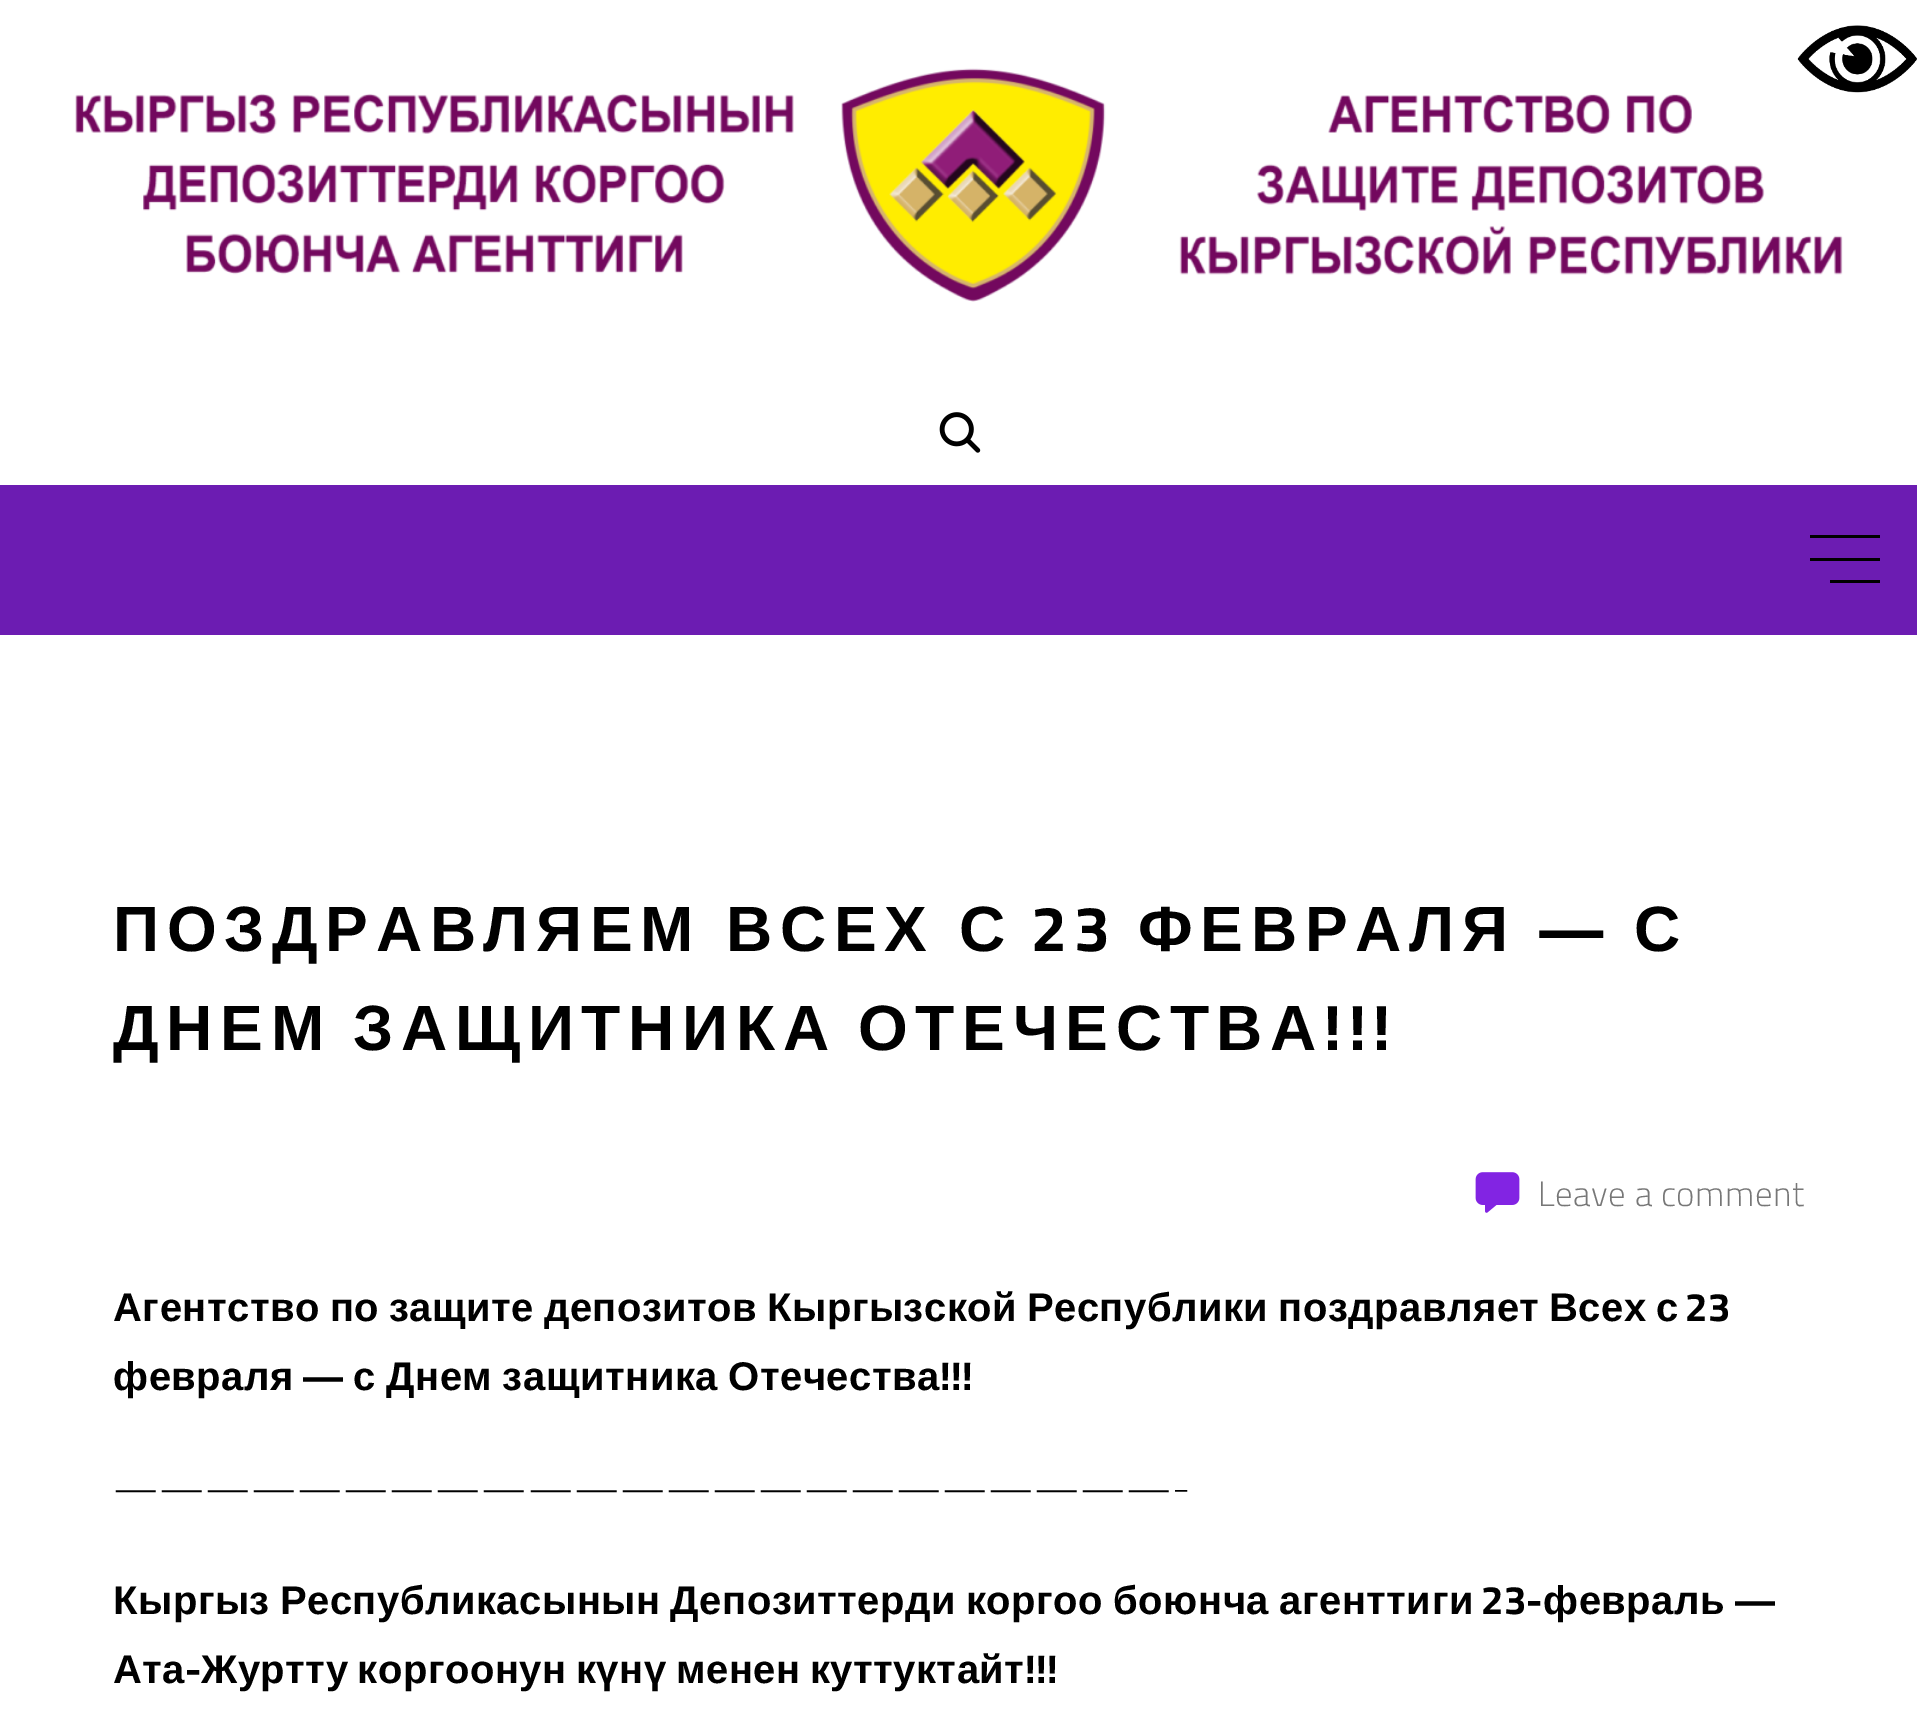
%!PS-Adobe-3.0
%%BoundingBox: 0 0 1917 1721
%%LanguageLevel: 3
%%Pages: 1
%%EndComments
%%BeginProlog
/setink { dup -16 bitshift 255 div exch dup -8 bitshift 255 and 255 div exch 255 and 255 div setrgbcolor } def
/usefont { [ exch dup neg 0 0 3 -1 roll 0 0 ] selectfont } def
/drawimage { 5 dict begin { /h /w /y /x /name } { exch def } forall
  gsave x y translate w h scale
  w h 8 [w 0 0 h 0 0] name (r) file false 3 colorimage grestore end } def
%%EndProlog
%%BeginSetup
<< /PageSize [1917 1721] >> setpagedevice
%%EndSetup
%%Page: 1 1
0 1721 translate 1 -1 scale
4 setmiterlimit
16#FFFFFF setink
0 0 1917 1721 rectfill
(img2.raw) 75 68 1768 234 drawimage
(img1.raw) 1797 25 120 68 drawimage
(img3.raw) 939 412 42 41 drawimage
[
    [0 485 1917 150 16#6C1CB2]
    [1810 558 70 3 16#000000]
    [1810 535 70 3 16#000000]
    [1830 580 50 3 16#000000]
] { aload pop setink rectfill } forall
/LiberationSans-Bold 64 usefont
113 951 moveto -1 0 32 7.7 0 (ПОЗДРАВЛЯЕМ ВСЕХ С) awidthshow
/Cairo-Bold 64 usefont
1031 951 moveto 7.7 0 (23) ashow
/LiberationSans-Bold 64 usefont
1138 951 moveto 7.7 0 (ФЕВРАЛЯ) ashow
/Cairo-Bold 64 usefont
1536 951 moveto 7.7 0 (—) ashow
/LiberationSans-Bold 64 usefont
1634 951 moveto 7.7 0 (С) ashow
113 1050 moveto -4 0 32 7.7 0 (ДНЕМ ЗАЩИТНИКА ОТЕЧЕСТВА) awidthshow
/Cairo-Bold 64 usefont
1324 1050 moveto 7.7 0 (!!!) ashow
(img4.raw) 1475 1172 45 41 drawimage
/Cairo-Light 35 usefont
16#777777 setink
1538 1206 moveto 0.5 0 (Leave a comment) ashow
/LiberationSans-Bold 40 usefont
16#000000 setink
113 1321 moveto -2 0 32 0.5 0 (Агентство по защите депозитов Кыргызской Республики поздравляет Всех с) awidthshow
/Cairo-Bold 40 usefont
1685 1321 moveto 0.5 0 (23) ashow
/LiberationSans-Bold 40 usefont
113 1390 moveto 0.5 0 (февраля) ashow
/Cairo-Bold 40 usefont
301 1390 moveto 0.5 0 (—) ashow
/LiberationSans-Bold 40 usefont
353 1390 moveto -1.5 0 32 0.5 0 (с Днем защитника Отечества) awidthshow
/Cairo-Bold 40 usefont
940 1390 moveto 0.5 0 (!!!) ashow
/Cairo-Light 40 usefont
113 1502 moveto 0.5 0 (———————————————————————-) ashow
/LiberationSans-Bold 40 usefont
113 1614 moveto -1.75 0 32 0.5 0 (Кыргыз Республикасынын Депозиттерди коргоо боюнча агенттиги) awidthshow
/Cairo-Bold 40 usefont
1481 1614 moveto 0.5 0 (23-) ashow
/LiberationSans-Bold 40 usefont
1543 1614 moveto 0.5 0 (февраль) ashow
/Cairo-Bold 40 usefont
1733 1614 moveto 0.5 0 (—) ashow
/LiberationSans-Bold 40 usefont
113 1683 moveto 0.5 0 (Ата) ashow
/Cairo-Bold 40 usefont
185 1683 moveto 0.5 0 (-) ashow
/LiberationSans-Bold 40 usefont
201 1683 moveto -2.5 0 32 0.5 0 (Журтту коргоонун күнү менен куттуктайт) awidthshow
/Cairo-Bold 40 usefont
1025 1683 moveto 0.5 0 (!!!) ashow
showpage
%%EOF
